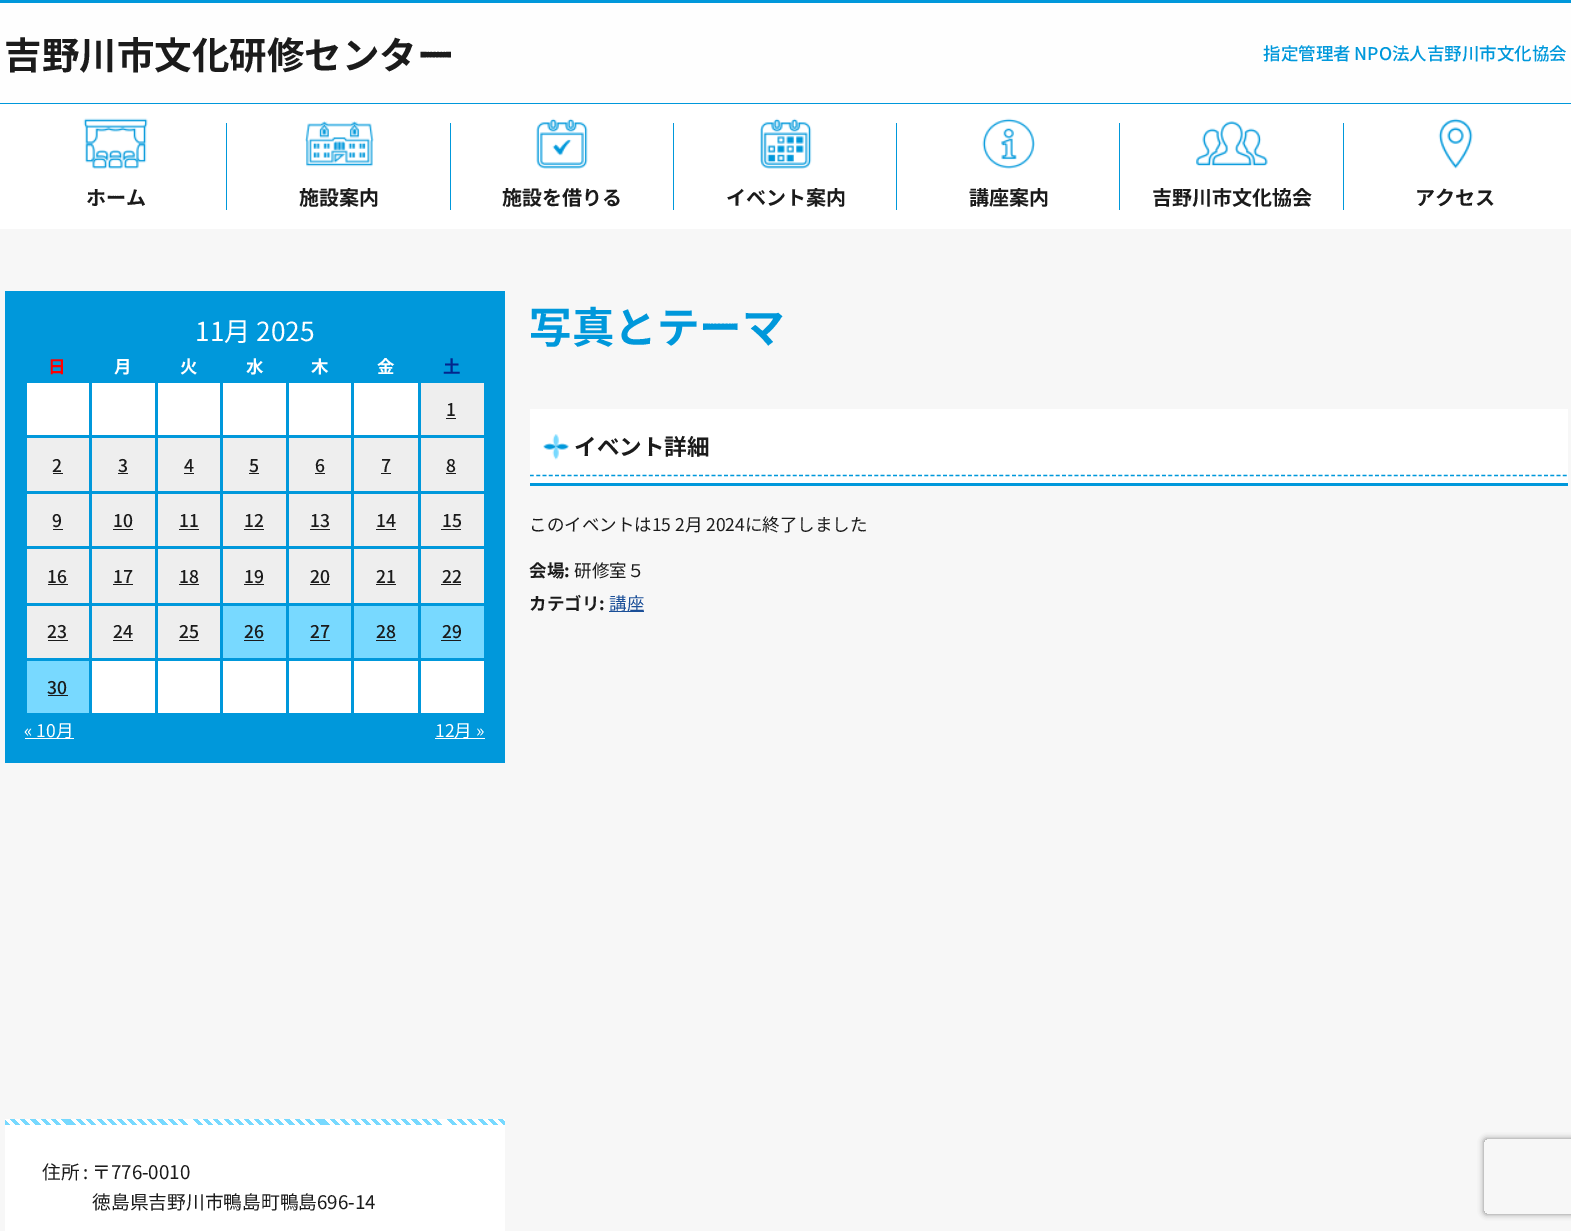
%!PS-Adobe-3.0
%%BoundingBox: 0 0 1571 1231
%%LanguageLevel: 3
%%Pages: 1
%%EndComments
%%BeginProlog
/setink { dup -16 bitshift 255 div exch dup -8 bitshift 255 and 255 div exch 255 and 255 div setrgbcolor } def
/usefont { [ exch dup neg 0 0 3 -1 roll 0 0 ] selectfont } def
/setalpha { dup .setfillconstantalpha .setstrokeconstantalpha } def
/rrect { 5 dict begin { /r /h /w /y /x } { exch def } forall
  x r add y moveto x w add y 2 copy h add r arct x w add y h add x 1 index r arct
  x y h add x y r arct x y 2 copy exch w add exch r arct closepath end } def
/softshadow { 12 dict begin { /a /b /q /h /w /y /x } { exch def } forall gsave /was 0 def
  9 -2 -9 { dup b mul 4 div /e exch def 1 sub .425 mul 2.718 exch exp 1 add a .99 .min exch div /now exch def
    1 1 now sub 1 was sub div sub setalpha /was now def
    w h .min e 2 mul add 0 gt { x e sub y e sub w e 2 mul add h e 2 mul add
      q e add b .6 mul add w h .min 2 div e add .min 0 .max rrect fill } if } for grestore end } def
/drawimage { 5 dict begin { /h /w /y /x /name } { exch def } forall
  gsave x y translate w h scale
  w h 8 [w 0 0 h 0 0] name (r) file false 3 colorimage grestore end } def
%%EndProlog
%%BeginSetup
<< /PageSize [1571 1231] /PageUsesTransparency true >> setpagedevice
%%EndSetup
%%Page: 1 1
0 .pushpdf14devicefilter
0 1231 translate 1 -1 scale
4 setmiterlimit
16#F7F7F7 setink
0 0 1571 1231 rectfill
16#FEFEFE setink
0 3 1571 100 rectfill
16#0098DB setink
0 0 1571 3 rectfill
/NotoSansJP-Bold 37.5 usefont
16#1B1B1B setink
4 69 moveto (吉野川市文化研修センター) show
/NotoSansJP-Medium 17.5 usefont
16#0098DB setink
1263 60 moveto (指定管理者 NPO法人吉野川市文化協会) show
16#FFFFFF setink
0 104 1571 125 rectfill
16#0098DB setink
0 103 1571 1 rectfill
(img1.raw) 83 118 65 51 drawimage
/NotoSansJP-Bold 20 usefont
16#1B1B1B setink
86 205 moveto (ホーム) show
16#0098DB setink
226 123 1 87 rectfill
(img2.raw) 305 121 69 46 drawimage
16#1B1B1B setink
299 205 moveto (施設案内) show
16#0098DB setink
450 123 1 87 rectfill
(img3.raw) 536 118 52 51 drawimage
16#1B1B1B setink
502 205 moveto (施設を借りる) show
16#0098DB setink
673 123 1 87 rectfill
(img4.raw) 760 118 52 51 drawimage
16#1B1B1B setink
726 205 moveto (イベント案内) show
16#0098DB setink
896 123 1 87 rectfill
(img5.raw) 982 118 53 51 drawimage
16#1B1B1B setink
969 205 moveto (講座案内) show
16#0098DB setink
1119 123 1 87 rectfill
(img6.raw) 1196 121 72 45 drawimage
16#1B1B1B setink
1152 205 moveto (吉野川市文化協会) show
16#0098DB setink
1343 123 1 87 rectfill
(img7.raw) 1438 118 35 51 drawimage
16#1B1B1B setink
1415 205 moveto (アクセス) show
16#0098DB setink
5 291 500 472 rectfill
/NotoSansJP-Regular 26.25 usefont
16#FFFFFF setink
195 341 moveto (11月 2025) show
/NotoSansJP-Bold 17.5 usefont
16#FF0000 setink
48 373 moveto (日) show
16#FFFFFF setink
[
    [(月) 114 373]
    [(火) 180 373]
    [(水) 246 373]
    [(木) 311 373]
    [(金) 377 373]
] { aload pop moveto show } forall
16#03258C setink
443 373 moveto (土) show
[
    [27 383 62 52 16#FFFFFF]
    [92 383 63 52 16#FFFFFF]
    [158 383 62 52 16#FFFFFF]
    [223 383 63 52 16#FFFFFF]
    [289 383 62 52 16#FFFFFF]
    [354 383 64 52 16#FFFFFF]
    [421 383 63 52 16#EEEEEE]
] { aload pop setink rectfill } forall
/NotoSansJP-Medium 17.5 usefont
16#1B1B1B setink
446 416 moveto (1) show
446 418 10 1 rectfill
16#EEEEEE setink
27 438 62 53 rectfill
16#1B1B1B setink
52 472 moveto (2) show
53 473 10 1 rectfill
16#EEEEEE setink
92 438 63 53 rectfill
16#1B1B1B setink
118 472 moveto (3) show
118 473 10 1 rectfill
16#EEEEEE setink
158 438 62 53 rectfill
16#1B1B1B setink
184 472 moveto (4) show
184 473 10 1 rectfill
16#EEEEEE setink
223 438 63 53 rectfill
16#1B1B1B setink
249 472 moveto (5) show
249 473 10 1 rectfill
16#EEEEEE setink
289 438 62 53 rectfill
16#1B1B1B setink
315 472 moveto (6) show
315 473 10 1 rectfill
16#EEEEEE setink
354 438 64 53 rectfill
16#1B1B1B setink
381 472 moveto (7) show
381 473 10 1 rectfill
16#EEEEEE setink
421 438 63 53 rectfill
16#1B1B1B setink
446 472 moveto (8) show
446 473 10 1 rectfill
16#EEEEEE setink
27 494 62 52 rectfill
16#1B1B1B setink
52 527 moveto (9) show
53 529 10 1 rectfill
16#EEEEEE setink
92 494 63 52 rectfill
16#1B1B1B setink
113 527 moveto (10) show
113 529 20 1 rectfill
16#EEEEEE setink
158 494 62 52 rectfill
16#1B1B1B setink
179 527 moveto (11) show
179 529 20 1 rectfill
16#EEEEEE setink
223 494 63 52 rectfill
16#1B1B1B setink
244 527 moveto (12) show
244 529 20 1 rectfill
16#EEEEEE setink
289 494 62 52 rectfill
16#1B1B1B setink
310 527 moveto (13) show
310 529 20 1 rectfill
16#EEEEEE setink
354 494 64 52 rectfill
16#1B1B1B setink
376 527 moveto (14) show
376 529 20 1 rectfill
16#EEEEEE setink
421 494 63 52 rectfill
16#1B1B1B setink
442 527 moveto (15) show
441 529 20 1 rectfill
16#EEEEEE setink
27 549 62 54 rectfill
16#1B1B1B setink
47 583 moveto (16) show
48 584 20 1 rectfill
16#EEEEEE setink
92 549 63 54 rectfill
16#1B1B1B setink
113 583 moveto (17) show
113 584 20 1 rectfill
16#EEEEEE setink
158 549 62 54 rectfill
16#1B1B1B setink
179 583 moveto (18) show
179 584 20 1 rectfill
16#EEEEEE setink
223 549 63 54 rectfill
16#1B1B1B setink
244 583 moveto (19) show
244 584 20 1 rectfill
16#EEEEEE setink
289 549 62 54 rectfill
16#1B1B1B setink
310 583 moveto (20) show
310 584 20 1 rectfill
16#EEEEEE setink
354 549 64 54 rectfill
16#1B1B1B setink
376 583 moveto (21) show
376 584 20 1 rectfill
16#EEEEEE setink
421 549 63 54 rectfill
16#1B1B1B setink
442 583 moveto (22) show
441 584 20 1 rectfill
16#EEEEEE setink
27 606 62 52 rectfill
16#1B1B1B setink
47 638 moveto (23) show
48 640 20 1 rectfill
16#EEEEEE setink
92 606 63 52 rectfill
16#1B1B1B setink
113 638 moveto (24) show
113 640 20 1 rectfill
16#EEEEEE setink
158 606 62 52 rectfill
16#1B1B1B setink
179 638 moveto (25) show
179 640 20 1 rectfill
16#78D9FF setink
223 606 63 52 rectfill
16#1B1B1B setink
244 638 moveto (26) show
244 640 20 1 rectfill
16#78D9FF setink
289 606 62 52 rectfill
16#1B1B1B setink
310 638 moveto (27) show
310 640 20 1 rectfill
16#78D9FF setink
354 606 64 52 rectfill
16#1B1B1B setink
376 638 moveto (28) show
376 640 20 1 rectfill
16#78D9FF setink
421 606 63 52 rectfill
16#1B1B1B setink
442 638 moveto (29) show
441 640 20 1 rectfill
16#78D9FF setink
27 661 62 52 rectfill
16#1B1B1B setink
47 694 moveto (30) show
[
    [48 695 20 1 16#1B1B1B]
    [92 661 63 52 16#FFFFFF]
    [158 661 62 52 16#FFFFFF]
    [223 661 63 52 16#FFFFFF]
    [289 661 62 52 16#FFFFFF]
    [354 661 64 52 16#FFFFFF]
    [421 661 63 52 16#FFFFFF]
    [25 738 49 1 16#FFFFFF]
] { aload pop setink rectfill } forall
/NotoSansJP-Regular 17.5 usefont
24 737 moveto (« 10月) show
435 738 50 1 rectfill
435 737 moveto (12月 ») show
5 1125 500 106 rectfill
gsave 5 1119 moveto 505 1119 lineto 505 1125 lineto 5 1125 lineto closepath clip newpath
<< /ShadingType 2 /ColorSpace /DeviceRGB /Coords [128 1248 383 994] /Extend [true true] /Function << /FunctionType 3 /Domain [0 1] /Functions [<< /FunctionType 2 /Domain [0 1] /C0 [0.467 0.851 1] /C1 [0.467 0.851 1] /N 1 >> << /FunctionType 2 /Domain [0 1] /C0 [1 1 1] /C1 [1 1 1] /N 1 >> << /FunctionType 2 /Domain [0 1] /C0 [0.467 0.851 1] /C1 [0.467 0.851 1] /N 1 >> << /FunctionType 2 /Domain [0 1] /C0 [1 1 1] /C1 [1 1 1] /N 1 >> << /FunctionType 2 /Domain [0 1] /C0 [0.467 0.851 1] /C1 [0.467 0.851 1] /N 1 >> << /FunctionType 2 /Domain [0 1] /C0 [1 1 1] /C1 [1 1 1] /N 1 >> << /FunctionType 2 /Domain [0 1] /C0 [0.467 0.851 1] /C1 [0.467 0.851 1] /N 1 >> << /FunctionType 2 /Domain [0 1] /C0 [1 1 1] /C1 [1 1 1] /N 1 >> << /FunctionType 2 /Domain [0 1] /C0 [0.467 0.851 1] /C1 [0.467 0.851 1] /N 1 >> << /FunctionType 2 /Domain [0 1] /C0 [1 1 1] /C1 [1 1 1] /N 1 >> << /FunctionType 2 /Domain [0 1] /C0 [0.467 0.851 1] /C1 [0.467 0.851 1] /N 1 >> << /FunctionType 2 /Domain [0 1] /C0 [1 1 1] /C1 [1 1 1] /N 1 >> << /FunctionType 2 /Domain [0 1] /C0 [0.467 0.851 1] /C1 [0.467 0.851 1] /N 1 >> << /FunctionType 2 /Domain [0 1] /C0 [1 1 1] /C1 [1 1 1] /N 1 >> << /FunctionType 2 /Domain [0 1] /C0 [0.467 0.851 1] /C1 [0.467 0.851 1] /N 1 >> << /FunctionType 2 /Domain [0 1] /C0 [1 1 1] /C1 [1 1 1] /N 1 >> << /FunctionType 2 /Domain [0 1] /C0 [0.467 0.851 1] /C1 [0.467 0.851 1] /N 1 >> << /FunctionType 2 /Domain [0 1] /C0 [1 1 1] /C1 [1 1 1] /N 1 >> << /FunctionType 2 /Domain [0 1] /C0 [0.467 0.851 1] /C1 [0.467 0.851 1] /N 1 >> << /FunctionType 2 /Domain [0 1] /C0 [1 1 1] /C1 [1 1 1] /N 1 >> << /FunctionType 2 /Domain [0 1] /C0 [0.467 0.851 1] /C1 [0.467 0.851 1] /N 1 >> << /FunctionType 2 /Domain [0 1] /C0 [1 1 1] /C1 [1 1 1] /N 1 >> << /FunctionType 2 /Domain [0 1] /C0 [0.467 0.851 1] /C1 [0.467 0.851 1] /N 1 >> << /FunctionType 2 /Domain [0 1] /C0 [1 1 1] /C1 [1 1 1] /N 1 >> << /FunctionType 2 /Domain [0 1] /C0 [0.467 0.851 1] /C1 [0.467 0.851 1] /N 1 >> << /FunctionType 2 /Domain [0 1] /C0 [1 1 1] /C1 [1 1 1] /N 1 >> << /FunctionType 2 /Domain [0 1] /C0 [0.467 0.851 1] /C1 [0.467 0.851 1] /N 1 >> << /FunctionType 2 /Domain [0 1] /C0 [1 1 1] /C1 [1 1 1] /N 1 >> << /FunctionType 2 /Domain [0 1] /C0 [0.467 0.851 1] /C1 [0.467 0.851 1] /N 1 >> << /FunctionType 2 /Domain [0 1] /C0 [1 1 1] /C1 [1 1 1] /N 1 >> << /FunctionType 2 /Domain [0 1] /C0 [0.467 0.851 1] /C1 [0.467 0.851 1] /N 1 >> << /FunctionType 2 /Domain [0 1] /C0 [1 1 1] /C1 [1 1 1] /N 1 >> << /FunctionType 2 /Domain [0 1] /C0 [0.467 0.851 1] /C1 [0.467 0.851 1] /N 1 >> << /FunctionType 2 /Domain [0 1] /C0 [1 1 1] /C1 [1 1 1] /N 1 >> << /FunctionType 2 /Domain [0 1] /C0 [0.467 0.851 1] /C1 [0.467 0.851 1] /N 1 >> << /FunctionType 2 /Domain [0 1] /C0 [1 1 1] /C1 [1 1 1] /N 1 >> << /FunctionType 2 /Domain [0 1] /C0 [0.467 0.851 1] /C1 [0.467 0.851 1] /N 1 >> << /FunctionType 2 /Domain [0 1] /C0 [1 1 1] /C1 [1 1 1] /N 1 >> << /FunctionType 2 /Domain [0 1] /C0 [0.467 0.851 1] /C1 [0.467 0.851 1] /N 1 >> << /FunctionType 2 /Domain [0 1] /C0 [1 1 1] /C1 [1 1 1] /N 1 >> << /FunctionType 2 /Domain [0 1] /C0 [0.467 0.851 1] /C1 [0.467 0.851 1] /N 1 >> << /FunctionType 2 /Domain [0 1] /C0 [1 1 1] /C1 [1 1 1] /N 1 >> << /FunctionType 2 /Domain [0 1] /C0 [0.467 0.851 1] /C1 [0.467 0.851 1] /N 1 >> << /FunctionType 2 /Domain [0 1] /C0 [1 1 1] /C1 [1 1 1] /N 1 >> << /FunctionType 2 /Domain [0 1] /C0 [0.467 0.851 1] /C1 [0.467 0.851 1] /N 1 >> << /FunctionType 2 /Domain [0 1] /C0 [1 1 1] /C1 [1 1 1] /N 1 >> << /FunctionType 2 /Domain [0 1] /C0 [0.467 0.851 1] /C1 [0.467 0.851 1] /N 1 >> << /FunctionType 2 /Domain [0 1] /C0 [1 1 1] /C1 [1 1 1] /N 1 >> << /FunctionType 2 /Domain [0 1] /C0 [0.467 0.851 1] /C1 [0.467 0.851 1] /N 1 >> << /FunctionType 2 /Domain [0 1] /C0 [1 1 1] /C1 [1 1 1] /N 1 >> << /FunctionType 2 /Domain [0 1] /C0 [0.467 0.851 1] /C1 [0.467 0.851 1] /N 1 >> << /FunctionType 2 /Domain [0 1] /C0 [1 1 1] /C1 [1 1 1] /N 1 >> << /FunctionType 2 /Domain [0 1] /C0 [0.467 0.851 1] /C1 [0.467 0.851 1] /N 1 >> << /FunctionType 2 /Domain [0 1] /C0 [1 1 1] /C1 [1 1 1] /N 1 >> << /FunctionType 2 /Domain [0 1] /C0 [0.467 0.851 1] /C1 [0.467 0.851 1] /N 1 >> << /FunctionType 2 /Domain [0 1] /C0 [1 1 1] /C1 [1 1 1] /N 1 >> << /FunctionType 2 /Domain [0 1] /C0 [0.467 0.851 1] /C1 [0.467 0.851 1] /N 1 >> << /FunctionType 2 /Domain [0 1] /C0 [1 1 1] /C1 [1 1 1] /N 1 >> << /FunctionType 2 /Domain [0 1] /C0 [0.467 0.851 1] /C1 [0.467 0.851 1] /N 1 >> << /FunctionType 2 /Domain [0 1] /C0 [1 1 1] /C1 [1 1 1] /N 1 >> << /FunctionType 2 /Domain [0 1] /C0 [0.467 0.851 1] /C1 [0.467 0.851 1] /N 1 >> << /FunctionType 2 /Domain [0 1] /C0 [1 1 1] /C1 [1 1 1] /N 1 >> << /FunctionType 2 /Domain [0 1] /C0 [0.467 0.851 1] /C1 [0.467 0.851 1] /N 1 >> << /FunctionType 2 /Domain [0 1] /C0 [1 1 1] /C1 [1 1 1] /N 1 >> << /FunctionType 2 /Domain [0 1] /C0 [0.467 0.851 1] /C1 [0.467 0.851 1] /N 1 >> << /FunctionType 2 /Domain [0 1] /C0 [1 1 1] /C1 [1 1 1] /N 1 >> << /FunctionType 2 /Domain [0 1] /C0 [0.467 0.851 1] /C1 [0.467 0.851 1] /N 1 >> << /FunctionType 2 /Domain [0 1] /C0 [1 1 1] /C1 [1 1 1] /N 1 >> << /FunctionType 2 /Domain [0 1] /C0 [0.467 0.851 1] /C1 [0.467 0.851 1] /N 1 >> << /FunctionType 2 /Domain [0 1] /C0 [1 1 1] /C1 [1 1 1] /N 1 >> << /FunctionType 2 /Domain [0 1] /C0 [0.467 0.851 1] /C1 [0.467 0.851 1] /N 1 >> << /FunctionType 2 /Domain [0 1] /C0 [1 1 1] /C1 [1 1 1] /N 1 >> << /FunctionType 2 /Domain [0 1] /C0 [0.467 0.851 1] /C1 [0.467 0.851 1] /N 1 >> << /FunctionType 2 /Domain [0 1] /C0 [1 1 1] /C1 [1 1 1] /N 1 >> << /FunctionType 2 /Domain [0 1] /C0 [0.467 0.851 1] /C1 [0.467 0.851 1] /N 1 >> << /FunctionType 2 /Domain [0 1] /C0 [1 1 1] /C1 [1 1 1] /N 1 >> << /FunctionType 2 /Domain [0 1] /C0 [0.467 0.851 1] /C1 [0.467 0.851 1] /N 1 >> << /FunctionType 2 /Domain [0 1] /C0 [1 1 1] /C1 [1 1 1] /N 1 >> << /FunctionType 2 /Domain [0 1] /C0 [0.467 0.851 1] /C1 [0.467 0.851 1] /N 1 >> << /FunctionType 2 /Domain [0 1] /C0 [1 1 1] /C1 [1 1 1] /N 1 >> << /FunctionType 2 /Domain [0 1] /C0 [0.467 0.851 1] /C1 [0.467 0.851 1] /N 1 >> << /FunctionType 2 /Domain [0 1] /C0 [1 1 1] /C1 [1 1 1] /N 1 >> << /FunctionType 2 /Domain [0 1] /C0 [0.467 0.851 1] /C1 [0.467 0.851 1] /N 1 >> << /FunctionType 2 /Domain [0 1] /C0 [1 1 1] /C1 [1 1 1] /N 1 >> << /FunctionType 2 /Domain [0 1] /C0 [0.467 0.851 1] /C1 [0.467 0.851 1] /N 1 >> << /FunctionType 2 /Domain [0 1] /C0 [1 1 1] /C1 [1 1 1] /N 1 >> << /FunctionType 2 /Domain [0 1] /C0 [0.467 0.851 1] /C1 [0.467 0.851 1] /N 1 >> << /FunctionType 2 /Domain [0 1] /C0 [1 1 1] /C1 [1 1 1] /N 1 >> << /FunctionType 2 /Domain [0 1] /C0 [0.467 0.851 1] /C1 [0.467 0.851 1] /N 1 >> << /FunctionType 2 /Domain [0 1] /C0 [1 1 1] /C1 [1 1 1] /N 1 >> << /FunctionType 2 /Domain [0 1] /C0 [0.467 0.851 1] /C1 [0.467 0.851 1] /N 1 >> << /FunctionType 2 /Domain [0 1] /C0 [1 1 1] /C1 [1 1 1] /N 1 >> << /FunctionType 2 /Domain [0 1] /C0 [0.467 0.851 1] /C1 [0.467 0.851 1] /N 1 >> << /FunctionType 2 /Domain [0 1] /C0 [1 1 1] /C1 [1 1 1] /N 1 >> << /FunctionType 2 /Domain [0 1] /C0 [0.467 0.851 1] /C1 [0.467 0.851 1] /N 1 >> << /FunctionType 2 /Domain [0 1] /C0 [1 1 1] /C1 [1 1 1] /N 1 >>] /Bounds [0.01 0.02 0.03 0.04 0.05 0.06 0.07 0.08 0.09 0.1 0.11 0.12 0.14 0.15 0.16 0.17 0.18 0.19 0.2 0.21 0.22 0.23 0.24 0.25 0.26 0.27 0.28 0.29 0.3 0.31 0.32 0.33 0.34 0.35 0.36 0.38 0.39 0.4 0.41 0.42 0.43 0.44 0.45 0.46 0.47 0.48 0.49 0.5 0.51 0.52 0.53 0.54 0.55 0.56 0.57 0.58 0.59 0.6 0.61 0.62 0.64 0.65 0.66 0.67 0.68 0.69 0.7 0.71 0.72 0.73 0.74 0.75 0.76 0.77 0.78 0.79 0.8 0.81 0.82 0.83 0.84 0.85 0.86 0.88 0.89 0.9 0.91 0.92 0.93 0.94 0.95 0.96 0.97 0.98 0.99] /Encode [0 1 0 1 0 1 0 1 0 1 0 1 0 1 0 1 0 1 0 1 0 1 0 1 0 1 0 1 0 1 0 1 0 1 0 1 0 1 0 1 0 1 0 1 0 1 0 1 0 1 0 1 0 1 0 1 0 1 0 1 0 1 0 1 0 1 0 1 0 1 0 1 0 1 0 1 0 1 0 1 0 1 0 1 0 1 0 1 0 1 0 1 0 1 0 1 0 1 0 1 0 1 0 1 0 1 0 1 0 1 0 1 0 1 0 1 0 1 0 1 0 1 0 1 0 1 0 1 0 1 0 1 0 1 0 1 0 1 0 1 0 1 0 1 0 1 0 1 0 1 0 1 0 1 0 1 0 1 0 1 0 1 0 1 0 1 0 1 0 1 0 1 0 1 0 1 0 1 0 1 0 1 0 1 0 1 0 1 0 1 0 1] >> >> shfill grestore
/NotoSansJP-Regular 18.75 usefont
16#1B1B1B setink
[
    [(住所) 42 1179]
    [(:) 83 1179]
    [(〒776-0010) 92 1179]
    [(徳島県吉野川市鴨島町鴨島696-14) 92 1209]
] { aload pop moveto show } forall
/NotoSansJP-Bold 42.5 usefont
16#0098DB setink
529 343 moveto (写真とテーマ) show
16#FFFFFF setink
530 409 1038 74 rectfill
16#0098DB setink
530 483 1038 3 rectfill
(img8.raw) 543 434 26 26 drawimage
/NotoSansJP-Bold 22.5 usefont
16#1B1B1B setink
574 455 moveto (イベント詳細) show
16#0098DB setink
1.2 setlinewidth
[3.75 2.51] 0 setdash
530 475.5 moveto 1567.5 475.5 lineto stroke
/NotoSansJP-Regular 17.5 usefont
16#1B1B1B setink
529 531 moveto (このイベントは15 2月 2024に終了しました) show
/NotoSansJP-Bold 17.5 usefont
529 577 moveto (会場:) show
/NotoSansJP-Regular 17.5 usefont
574 577 moveto (研修室５) show
/NotoSansJP-Bold 17.5 usefont
529 610 moveto (カテゴリ:) show
16#1B4F98 setink
609 611 35 1 rectfill
/NotoSansJP-Regular 17.5 usefont
609 610 moveto (講座) show
gsave
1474 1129 moveto 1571 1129 lineto 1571 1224 lineto 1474 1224 lineto closepath 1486.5 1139 moveto 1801.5 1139 lineto 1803 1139 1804 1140 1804 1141.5 curveto 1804 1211.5 lineto 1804 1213 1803 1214 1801.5 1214 curveto 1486.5 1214 lineto 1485 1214 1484 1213 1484 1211.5 curveto 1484 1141.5 lineto 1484 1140 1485 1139 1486.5 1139 curveto closepath eoclip newpath
16#808080 setink
1484 1139 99 75 2.5 3 1 softshadow
grestore
.poppdf14devicefilter showpage
%%EOF
